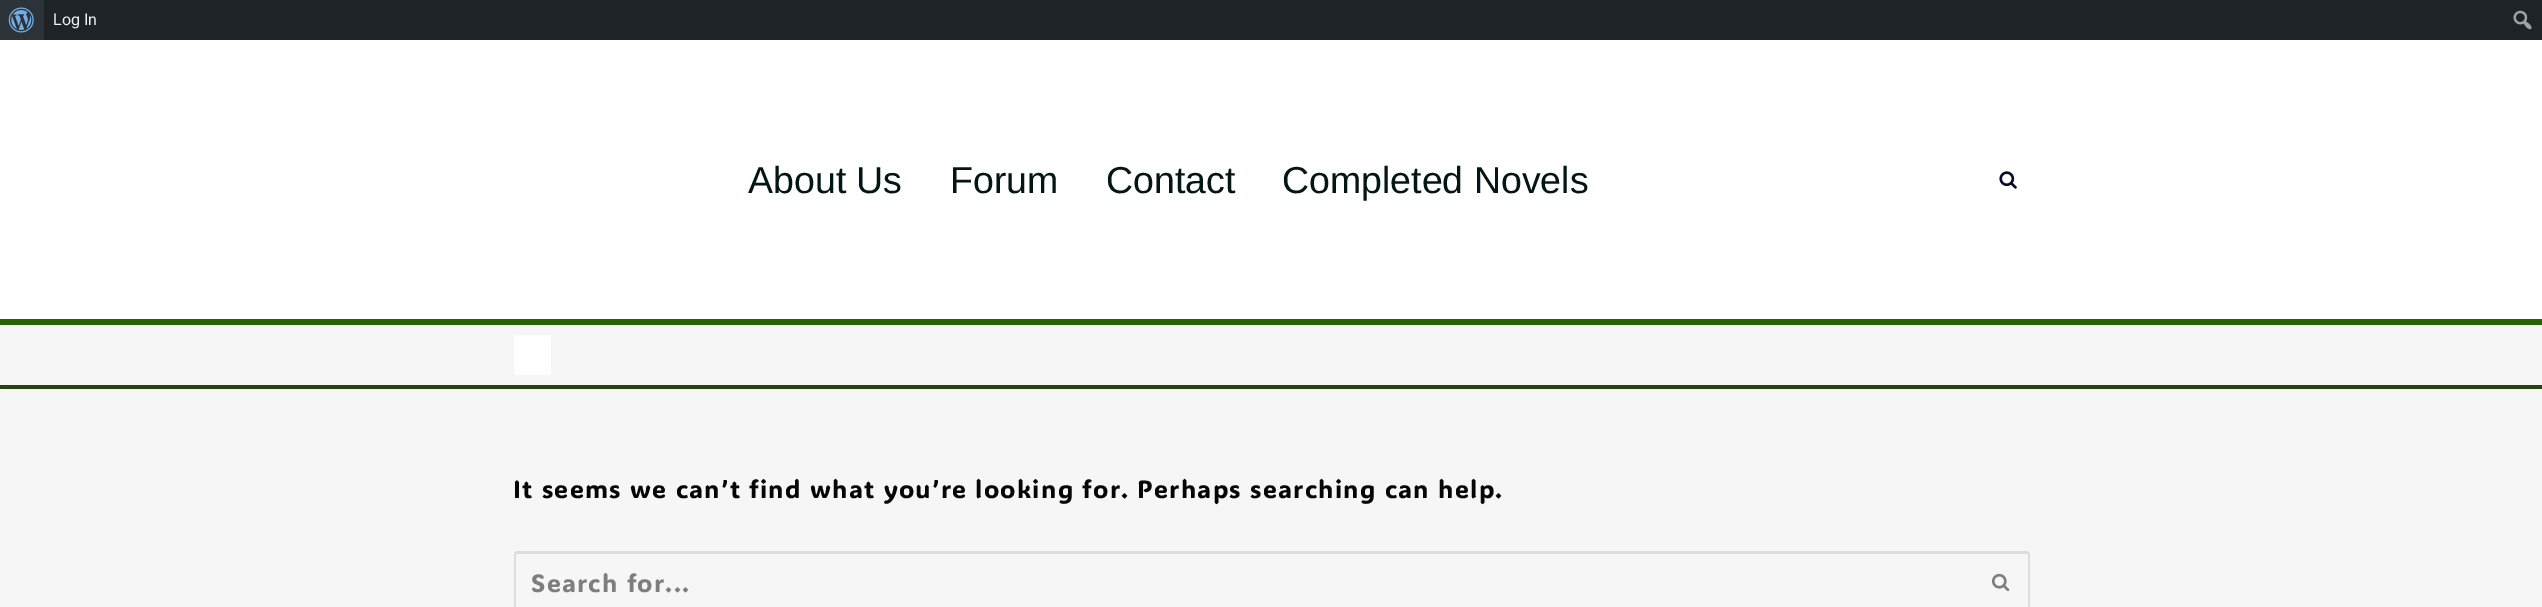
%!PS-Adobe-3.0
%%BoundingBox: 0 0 2542 607
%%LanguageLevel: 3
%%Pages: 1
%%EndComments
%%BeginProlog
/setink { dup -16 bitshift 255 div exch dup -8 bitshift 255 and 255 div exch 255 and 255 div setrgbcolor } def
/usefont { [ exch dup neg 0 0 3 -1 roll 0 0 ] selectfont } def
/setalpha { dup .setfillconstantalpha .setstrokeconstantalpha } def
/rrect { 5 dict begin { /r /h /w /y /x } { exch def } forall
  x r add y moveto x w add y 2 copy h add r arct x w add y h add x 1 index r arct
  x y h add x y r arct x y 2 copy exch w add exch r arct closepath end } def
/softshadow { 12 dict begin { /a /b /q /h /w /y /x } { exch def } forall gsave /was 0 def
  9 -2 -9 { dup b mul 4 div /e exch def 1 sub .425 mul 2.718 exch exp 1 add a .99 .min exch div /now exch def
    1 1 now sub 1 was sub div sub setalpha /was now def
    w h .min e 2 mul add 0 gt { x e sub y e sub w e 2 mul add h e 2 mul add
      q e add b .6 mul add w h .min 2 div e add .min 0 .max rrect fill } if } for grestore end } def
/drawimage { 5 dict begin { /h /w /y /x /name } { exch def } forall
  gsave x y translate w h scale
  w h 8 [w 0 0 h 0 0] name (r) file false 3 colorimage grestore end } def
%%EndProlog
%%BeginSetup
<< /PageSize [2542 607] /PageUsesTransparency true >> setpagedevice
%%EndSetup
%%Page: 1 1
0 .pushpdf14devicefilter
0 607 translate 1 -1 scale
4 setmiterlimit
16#F6F6F6 setink
0 0 2542 607 rectfill
gsave
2 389 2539 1 rectclip
16#000000 setink
0 39 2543 349 0 2 0.1 softshadow
grestore
16#1D2327 setink
44 0 2498 40 rectfill
16#2C3338 setink
0 0 44 40 rectfill
(img1.raw) 8 7 26 26 drawimage
/Roboto-Regular 16 usefont
16#F0F0F1 setink
53 25 moveto (Log In) show
(img2.raw) 2513 10 19 20 drawimage
16#FFFFFF setink
0 40 2542 279 rectfill
16#246300 setink
0 319 2542 6 rectfill
/LiberationSans-Regular 37.5 usefont
16#031515 setink
[
    [(About Us) 748 193]
    [(Forum) 950 193]
    [(Contact) 1106 193]
    [(Completed Novels) 1282 193]
] { aload pop moveto show } forall
(img3.raw) 1999 171 18 18 drawimage
16#244311 setink
0 385 2542 4 rectfill
16#FEFEFE setink
514 335 37 40 rectfill
/ADLaMDisplay-Regular 25 usefont
16#060606 setink
513 498 moveto 1.25 0 (It seems we can’t find what you’re looking for. Perhaps searching can help.) ashow
16#DDDDDD setink
518 551 moveto 1974 551 lineto 1974 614 lineto 518 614 lineto 515 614 514 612 514 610 curveto 514 555 lineto 514 553 515 551 518 551 curveto closepath 518 554 moveto 1974 554 lineto 1974 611 lineto 518 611 lineto 517 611 516 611 516 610 curveto 516 555 lineto 516 554 517 554 518 554 curveto closepath eofill
16#7E7E7E setink
531 592 moveto 1.25 0 (Search for...) ashow
16#DDDDDD setink
1974 551 moveto 2026 551 lineto 2028 551 2030 553 2030 555 curveto 2030 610 lineto 2030 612 2028 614 2026 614 curveto 1974 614 lineto closepath 1974 554 moveto 2026 554 lineto 2027 554 2028 554 2028 555 curveto 2028 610 lineto 2028 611 2027 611 2026 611 curveto 1974 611 lineto closepath eofill
(img4.raw) 1991 573 19 18 drawimage
.poppdf14devicefilter showpage
%%EOF
